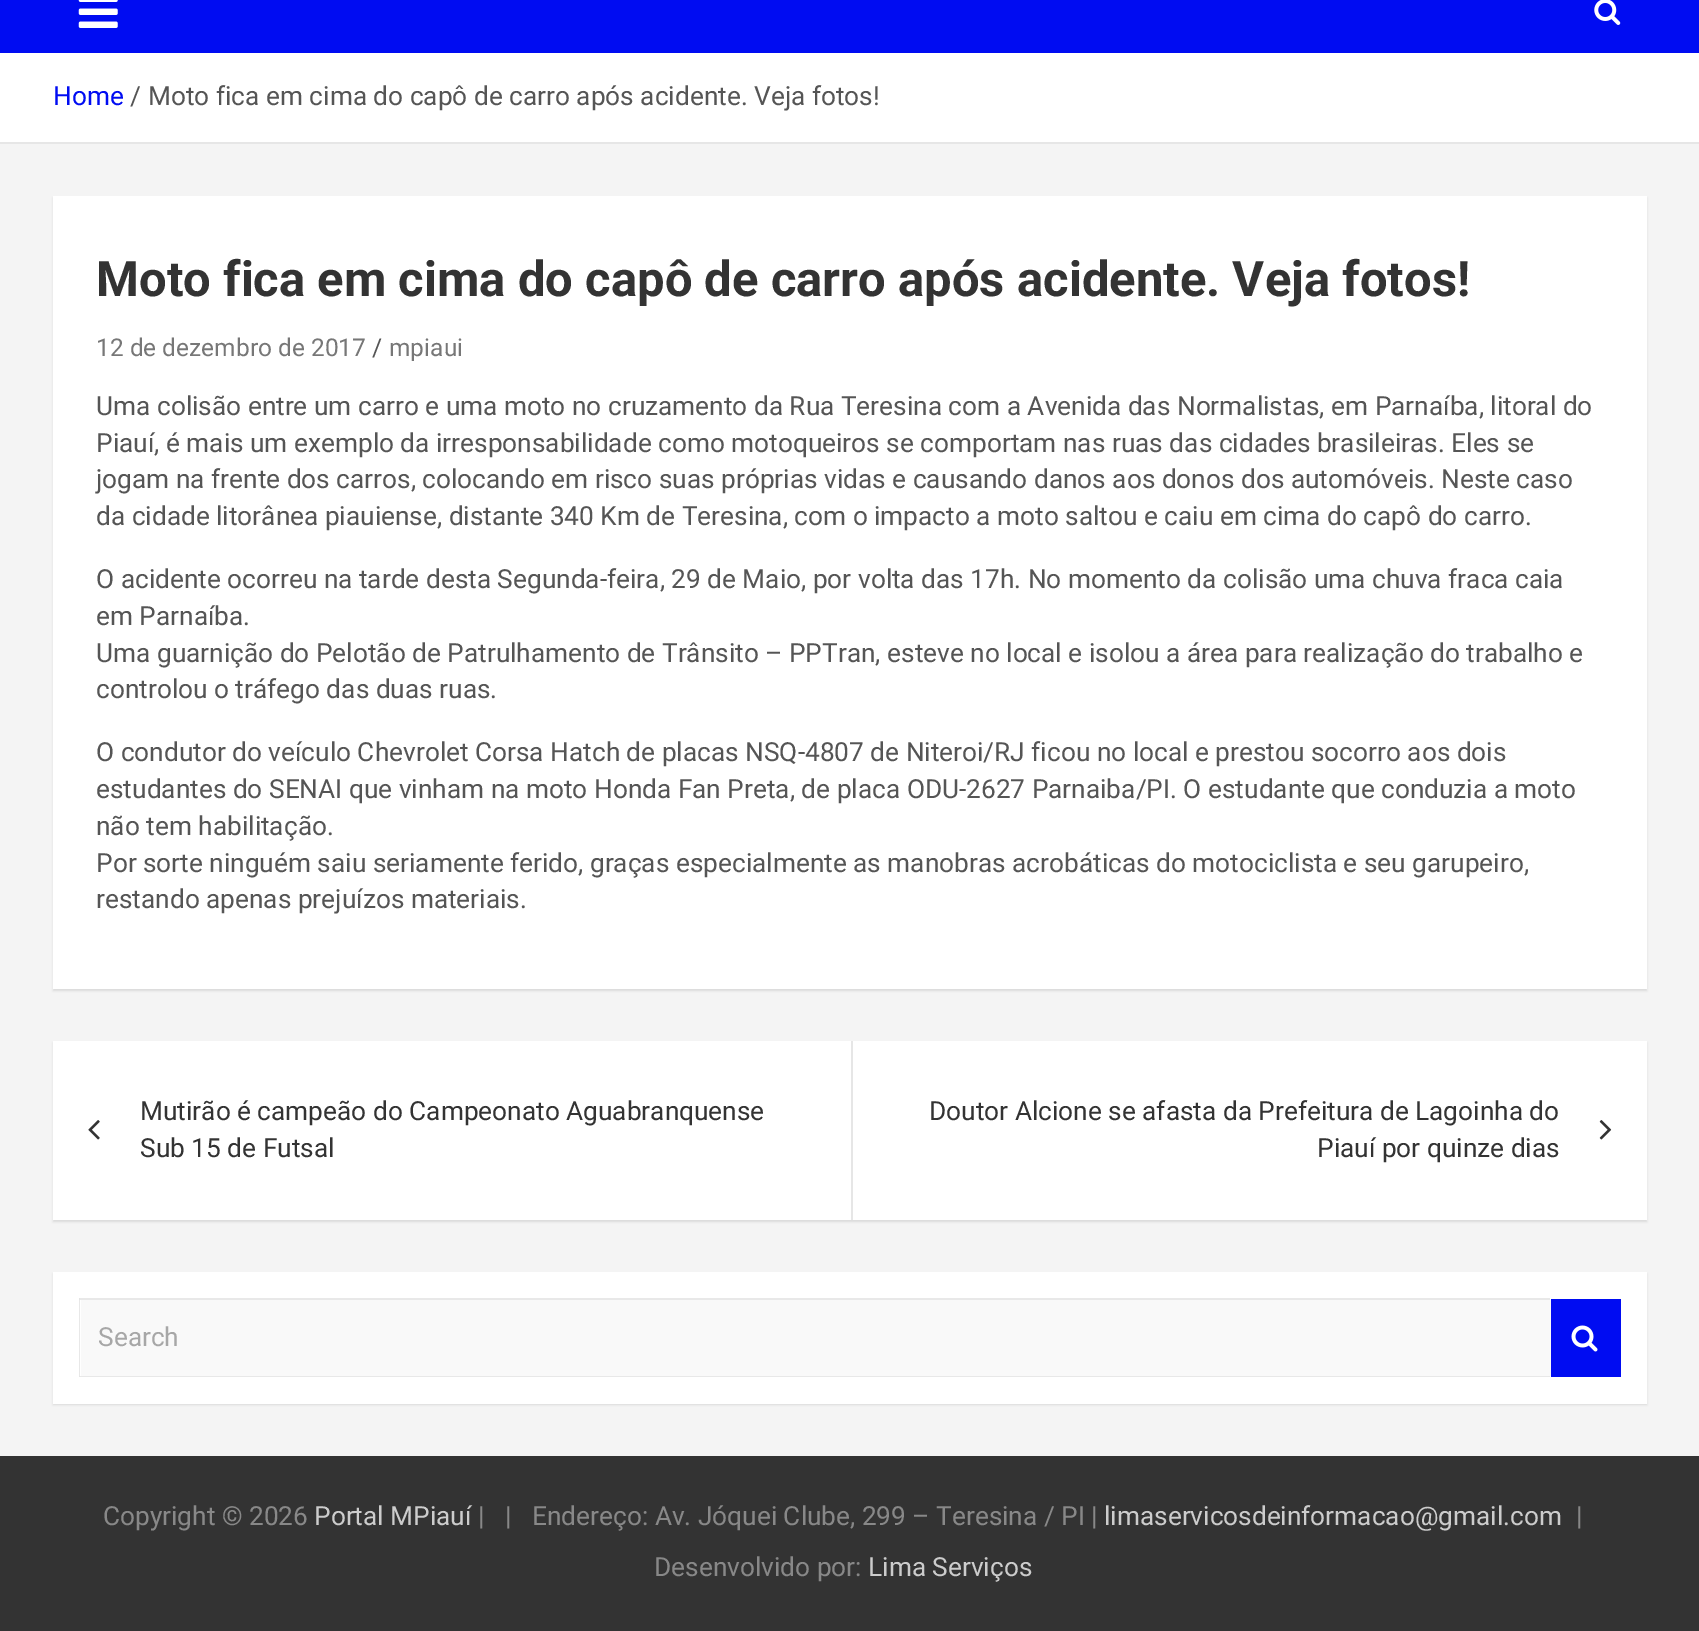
%!PS-Adobe-3.0
%%BoundingBox: 0 0 1699 1631
%%LanguageLevel: 3
%%Pages: 1
%%EndComments
%%BeginProlog
/setink { dup -16 bitshift 255 div exch dup -8 bitshift 255 and 255 div exch 255 and 255 div setrgbcolor } def
/usefont { [ exch dup neg 0 0 3 -1 roll 0 0 ] selectfont } def
/setalpha { dup .setfillconstantalpha .setstrokeconstantalpha } def
/rrect { 5 dict begin { /r /h /w /y /x } { exch def } forall
  x r add y moveto x w add y 2 copy h add r arct x w add y h add x 1 index r arct
  x y h add x y r arct x y 2 copy exch w add exch r arct closepath end } def
/softshadow { 12 dict begin { /a /b /q /h /w /y /x } { exch def } forall gsave /was 0 def
  9 -2 -9 { dup b mul 4 div /e exch def 1 sub .425 mul 2.718 exch exp 1 add a .99 .min exch div /now exch def
    1 1 now sub 1 was sub div sub setalpha /was now def
    w h .min e 2 mul add 0 gt { x e sub y e sub w e 2 mul add h e 2 mul add
      q e add b .6 mul add w h .min 2 div e add .min 0 .max rrect fill } if } for grestore end } def
/drawimage { 5 dict begin { /h /w /y /x /name } { exch def } forall
  gsave x y translate w h scale
  w h 8 [w 0 0 h 0 0] name (r) file false 3 colorimage grestore end } def
%%EndProlog
%%BeginSetup
<< /PageSize [1699 1631] /PageUsesTransparency true >> setpagedevice
%%EndSetup
%%Page: 1 1
0 .pushpdf14devicefilter
0 1631 translate 1 -1 scale
4 setmiterlimit
16#F4F4F4 setink
0 0 1699 1631 rectfill
16#000CF2 setink
0 0 1699 53 rectfill
(img1.raw) 78 0 40 28 drawimage
(img2.raw) 1594 0 27 25 drawimage
16#FFFFFF setink
0 53 1699 89 rectfill
16#E6E6E6 setink
0 142 1699 2 rectfill
/Roboto-Regular 26.25 usefont
16#000CF2 setink
53 105 moveto (Home) show
16#555555 setink
130 105 moveto (/) show
148 105 moveto (Moto fica em cima do capô de carro após acidente. Veja fotos!) show
16#000000 setink
53 198 1594 793 0 1 0.1 softshadow
16#FFFFFF setink
53 196 1594 793 rectfill
/Roboto-Bold 49 usefont
16#333333 setink
96 296 moveto (Moto fica em cima do capô de carro após acidente. Veja fotos!) show
/Roboto-Regular 24.5 usefont
16#777777 setink
96 356 moveto (12 de dezembro de 2017) show
16#555555 setink
372 356 moveto (/) show
16#777777 setink
389 356 moveto (mpiaui) show
/Roboto-Regular 26.25 usefont
16#555555 setink
[
    [(Uma colisão entre um carro e uma moto no cruzamento da Rua Teresina com a Avenida das Normalistas, em Parnaíba, litoral do) 96 415]
    [(Piauí, é mais um exemplo da irresponsabilidade como motoqueiros se comportam nas ruas das cidades brasileiras. Eles se) 96 452]
    [(jogam na frente dos carros, colocando em risco suas próprias vidas e causando danos aos donos dos automóveis. Neste caso) 96 488]
    [(da cidade litorânea piauiense, distante 340 Km de Teresina, com o impacto a moto saltou e caiu em cima do capô do carro.) 96 525]
    [(O acidente ocorreu na tarde desta Segunda-feira, 29 de Maio, por volta das 17h. No momento da colisão uma chuva fraca caia) 96 588]
    [(em Parnaíba.) 96 625]
    [(Uma guarnição do Pelotão de Patrulhamento de Trânsito – PPTran, esteve no local e isolou a área para realização do trabalho e) 96 662]
    [(controlou o tráfego das duas ruas.) 96 698]
    [(O condutor do veículo Chevrolet Corsa Hatch de placas NSQ-4807 de Niteroi/RJ ficou no local e prestou socorro aos dois) 96 761]
    [(estudantes do SENAI que vinham na moto Honda Fan Preta, de placa ODU-2627 Parnaiba/PI. O estudante que conduzia a moto) 96 798]
    [(não tem habilitação.) 96 835]
    [(Por sorte ninguém saiu seriamente ferido, graças especialmente as manobras acrobáticas do motociclista e seu garupeiro,) 96 872]
    [(restando apenas prejuízos materiais.) 96 908]
] { aload pop moveto show } forall
16#000000 setink
53 1043 1594 179 0 1 0.1 softshadow
16#FFFFFF setink
53 1041 1594 179 rectfill
16#333333 setink
140 1120 moveto (Mutirão é campeão do Campeonato Aguabranquense) show
(img3.raw) 88 1120 12 20 drawimage
140 1157 moveto (Sub 15 de Futsal) show
16#E6E6E6 setink
851 1041 2 179 rectfill
16#333333 setink
929 1120 moveto (Doutor Alcione se afasta da Prefeitura de Lagoinha do) show
(img4.raw) 1599 1120 13 20 drawimage
1317 1157 moveto (Piauí por quinze dias) show
16#000000 setink
53 1274 1594 131 0 1 0.1 softshadow
16#FFFFFF setink
53 1272 1594 132 rectfill
16#F9F9F9 setink
81 1300 1470 76 rectfill
16#E8E8E8 setink
79 1298 moveto 1550 1298 lineto 1550 1300 lineto 80 1300 lineto closepath fill
1550 1377 moveto 79 1377 lineto 80 1376 lineto 1550 1376 lineto closepath fill
0.09 setalpha
16#000000 setink
79 1377 moveto 79 1298 lineto 80 1300 lineto 80 1376 lineto closepath fill
1 setalpha
16#A7A7A7 setink
98 1346 moveto (Search) show
16#000CF2 setink
1551 1299 70 78 rectfill
(img5.raw) 1571 1325 27 27 drawimage
16#333333 setink
0 1456 1699 175 rectfill
16#888888 setink
103 1525 moveto (Copyright © 2026) show
16#CCCCCC setink
314 1525 moveto (Portal MPiauí) show
16#888888 setink
[
    [(|) 478 1525]
    [(|) 505 1525]
    [(Endereço: Av. Jóquei Clube, 299 – Teresina / PI |) 532 1525]
] { aload pop moveto show } forall
16#CCCCCC setink
1104 1525 moveto (limaservicosdeinformacao@gmail.com) show
16#888888 setink
1576 1525 moveto (|) show
654 1576 moveto (Desenvolvido por:) show
16#CCCCCC setink
868 1576 moveto (Lima Serviços) show
.poppdf14devicefilter showpage
%%EOF
